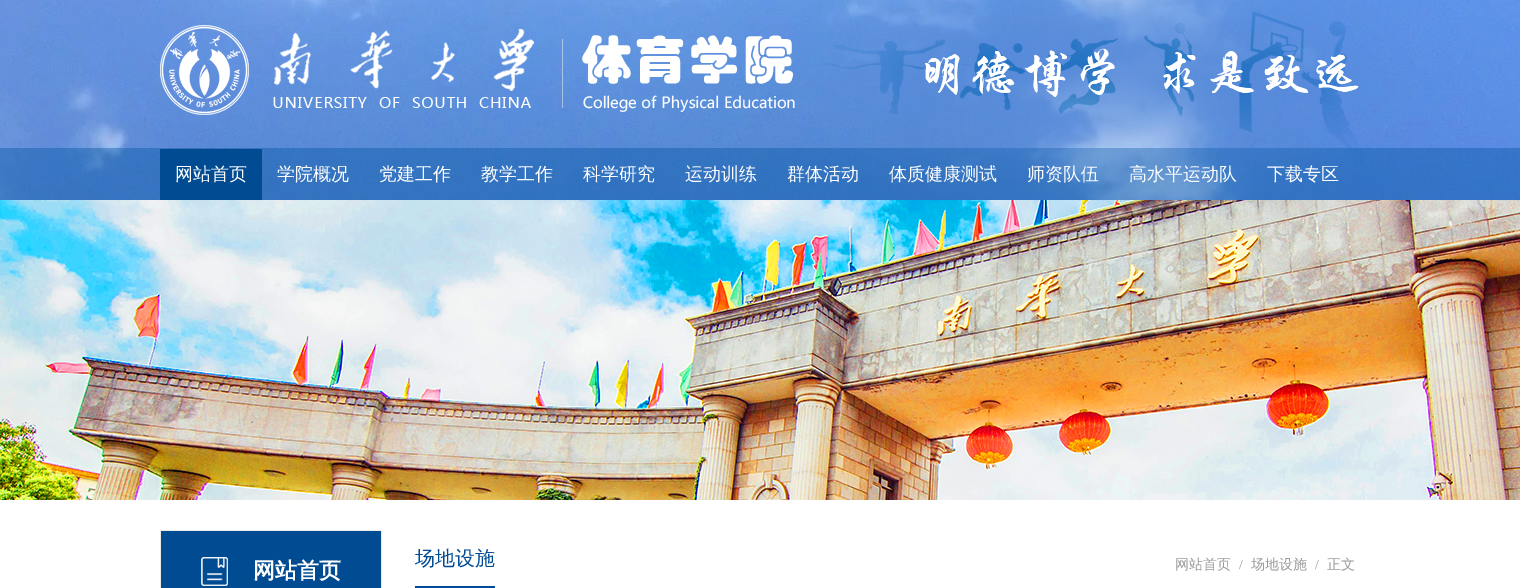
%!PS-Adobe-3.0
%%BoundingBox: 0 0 1520 588
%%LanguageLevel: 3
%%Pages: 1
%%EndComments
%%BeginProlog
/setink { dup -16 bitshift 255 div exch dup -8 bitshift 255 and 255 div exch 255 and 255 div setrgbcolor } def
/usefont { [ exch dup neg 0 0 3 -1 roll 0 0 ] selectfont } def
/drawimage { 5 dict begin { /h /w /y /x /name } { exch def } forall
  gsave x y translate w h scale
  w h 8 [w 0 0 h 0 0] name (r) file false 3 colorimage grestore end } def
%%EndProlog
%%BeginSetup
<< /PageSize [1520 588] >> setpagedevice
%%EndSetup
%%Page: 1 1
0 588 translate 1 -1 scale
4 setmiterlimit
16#FFFFFF setink
0 0 1520 588 rectfill
(img1.raw) 0 0 1520 200 drawimage
(img2.raw) 160 25 635 90 drawimage
(img3.raw) 925 48 434 50 drawimage
16#004B92 setink
160 149 102 51 rectfill
/WenQuanYiZenHei-Medium 18 usefont
16#FFFFFF setink
[
    [(网站首页) 175 180]
    [(学院概况) 277 180]
    [(党建工作) 379 180]
    [(教学工作) 481 180]
    [(科学研究) 583 180]
    [(运动训练) 685 180]
    [(群体活动) 787 180]
    [(体质健康测试) 889 180]
    [(师资队伍) 1027 180]
    [(高水平运动队) 1129 180]
    [(下载专区) 1267 180]
] { aload pop moveto show } forall
(img4.raw) 0 200 1520 300 drawimage
16#EAEAEA setink
160.5 530.5 221 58 rectstroke
16#004B92 setink
161 531 220 57 rectfill
(img5.raw) 201 557 27 29 drawimage
/WenQuanYiZenHei-Bold 22 usefont
16#FFFFFF setink
253 578 moveto (网站首页) show
16#004B92 setink
415 586 80 2 rectfill
/WenQuanYiZenHei-Medium 20 usefont
415 565 moveto (场地设施) show
/WenQuanYiZenHei-Medium 14 usefont
16#9A9A9A setink
1175 569 moveto (网站首页) show
/LiberationSerif-Regular 14 usefont
1239 569 moveto (/) show
/WenQuanYiZenHei-Medium 14 usefont
1251 569 moveto (场地设施) show
/LiberationSerif-Regular 14 usefont
1315 569 moveto (/) show
/WenQuanYiZenHei-Medium 14 usefont
1327 569 moveto (正文) show
showpage
%%EOF
